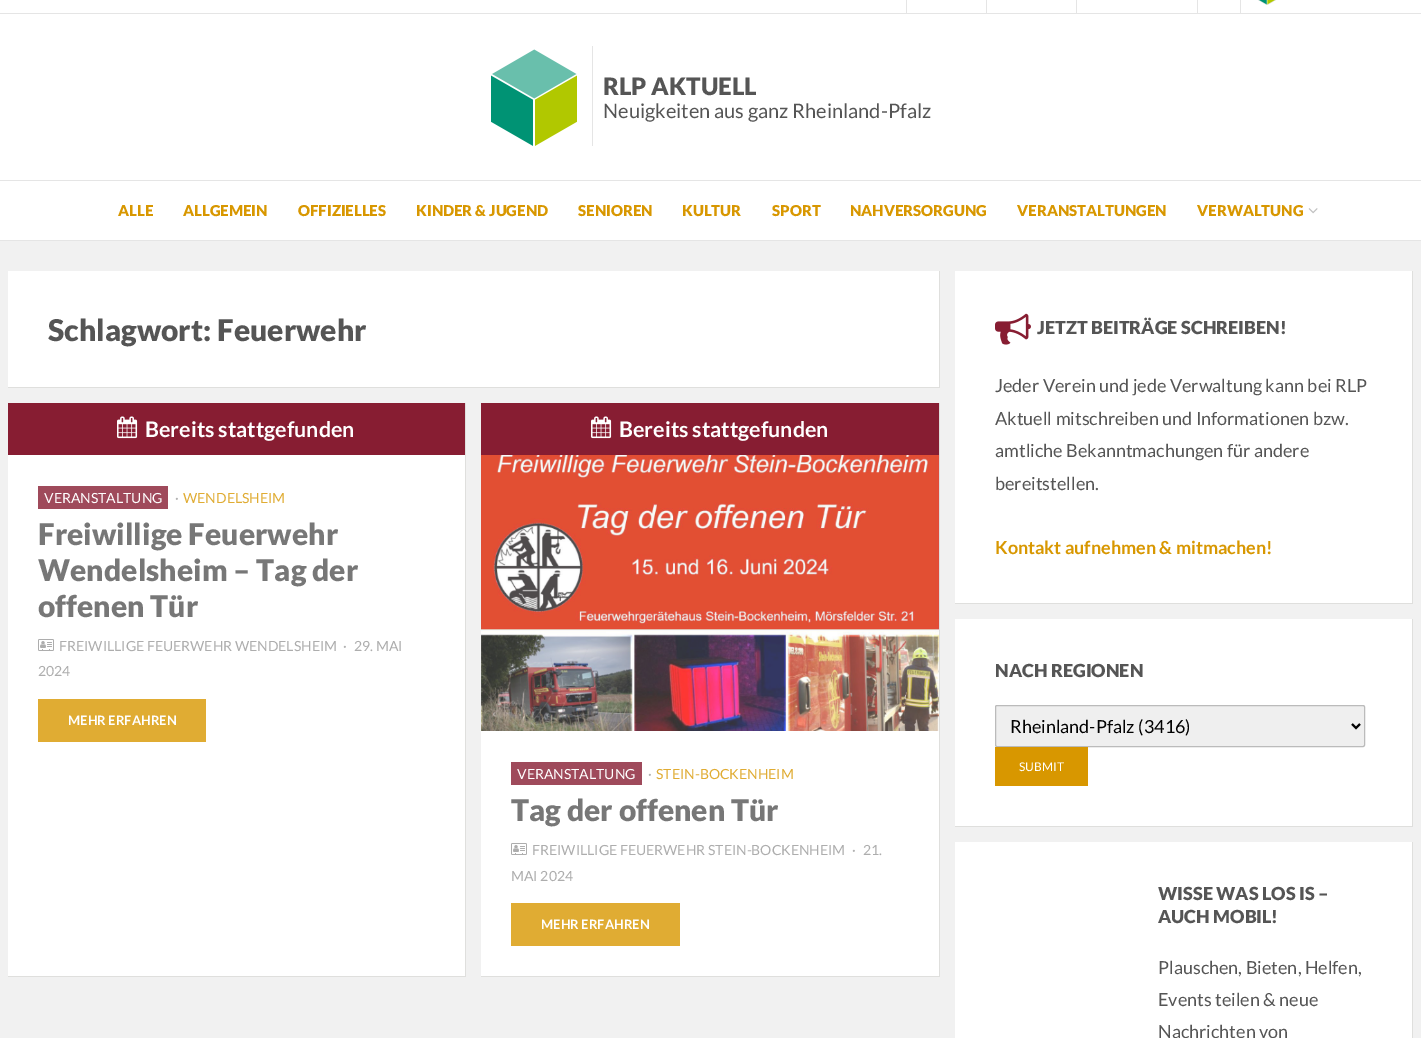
%!PS-Adobe-3.0
%%BoundingBox: 0 0 1421 1038
%%LanguageLevel: 3
%%Pages: 1
%%EndComments
%%BeginProlog
/setink { dup -16 bitshift 255 div exch dup -8 bitshift 255 and 255 div exch 255 and 255 div setrgbcolor } def
/usefont { [ exch dup neg 0 0 3 -1 roll 0 0 ] selectfont } def
/rrect { 5 dict begin { /r /h /w /y /x } { exch def } forall
  x r add y moveto x w add y 2 copy h add r arct x w add y h add x 1 index r arct
  x y h add x y r arct x y 2 copy exch w add exch r arct closepath end } def
/drawimage { 5 dict begin { /h /w /y /x /name } { exch def } forall
  gsave x y translate w h scale
  w h 8 [w 0 0 h 0 0] name (r) file false 3 colorimage grestore end } def
%%EndProlog
%%BeginSetup
<< /PageSize [1421 1038] >> setpagedevice
%%EndSetup
%%Page: 1 1
0 1038 translate 1 -1 scale
4 setmiterlimit
16#F1F1F1 setink
0 0 1421 1038 rectfill
[
    [0 0 1421 13 16#FFFFFF]
    [0 13 1421 1 16#E5E5E5]
    [906 0 1 13 16#E5E5E5]
    [986 0 1 13 16#E5E5E5]
    [1076 0 1 13 16#E5E5E5]
    [1197 0 1 13 16#E5E5E5]
    [1240 0 1 13 16#E5E5E5]
] { aload pop setink rectfill } forall
(img1.raw) 1258 0 18 5 drawimage
16#FFFFFF setink
0 14 1421 166 rectfill
(img2.raw) 491 49 86 97 drawimage
16#E5E5E5 setink
592 46 1 100 rectfill
/Lato-Black 24 usefont
16#555555 setink
603 95 moveto (RLP AKTUELL) show
/Lato-Regular 20 usefont
603 118 moveto (Neuigkeiten aus ganz Rheinland-Pfalz) show
[
    [0 181 1421 59 16#FFFFFF]
    [0 180 1421 1 16#E5E5E5]
    [0 240 1421 1 16#E5E5E5]
] { aload pop setink rectfill } forall
/Lato-Black 15 usefont
16#D89700 setink
[
    [(ALLE) 118 216]
    [(ALLGEMEIN) 183 216]
    [(OFFIZIELLES) 298 216]
    [(KINDER & JUGEND) 416 216]
    [(SENIOREN) 578 216]
    [(KULTUR) 682 216]
    [(SPORT) 772 216]
    [(NAHVERSORGUNG) 850 216]
    [(VERANSTALTUNGEN) 1017 216]
    [(VERWALTUNG) 1197 216]
] { aload pop moveto show } forall
(img3.raw) 1308 208 10 6 drawimage
[
    [8 271 931 116 16#FFFFFF]
    [939 271 1 117 16#DFDFDD]
    [8 387 932 1 16#DFDFDD]
] { aload pop setink rectfill } forall
/Lato-Black 30 usefont
16#555555 setink
48 341 moveto (Schlagwort: Feuerwehr) show
[
    [8 455 457 521 16#FFFFFF]
    [465 403 1 574 16#DFDFDD]
    [8 976 458 1 16#DFDFDD]
    [8 403 457 52 16#871D32]
] { aload pop setink rectfill } forall
(img4.raw) 117 416 21 23 drawimage
/Lato-Bold 21.5 usefont
16#FFFFFF setink
145 437 moveto (Bereits stattgefunden) show
16#9F4A5B setink
38 486 130 23 rectfill
/Lato-Regular 14 usefont
16#FFFFFF setink
44 503 moveto (VERANSTALTUNG) show
16#ADADAD setink
175 503 moveto (·) show
16#E0AC33 setink
183 503 moveto (WENDELSHEIM) show
/Lato-Black 30 usefont
16#777777 setink
[
    [(Freiwillige Feuerwehr) 38 545]
    [(Wendelsheim – Tag der) 38 581]
    [(offenen Tür) 38 617]
] { aload pop moveto show } forall
(img5.raw) 38 639 16 12 drawimage
/Lato-Regular 14 usefont
16#ADADAD setink
[
    [(FREIWILLIGE FEUERWEHR WENDELSHEIM) 59 651]
    [(·) 343 651]
    [(29. MAI) 354 651]
    [(2024) 38 676]
] { aload pop moveto show } forall
16#E0AC33 setink
38 699 168 43 rectfill
/Lato-Bold 13 usefont
16#FFFFFF setink
68 725 moveto (MEHR ERFAHREN) show
[
    [481 455 458 521 16#FFFFFF]
    [939 403 1 574 16#DFDFDD]
    [481 976 459 1 16#DFDFDD]
    [481 403 458 52 16#871D32]
] { aload pop setink rectfill } forall
(img4.raw) 591 416 21 23 drawimage
/Lato-Bold 21.5 usefont
16#FFFFFF setink
619 437 moveto (Bereits stattgefunden) show
(img6.raw) 481 455 458 276 drawimage
16#9F4A5B setink
511 762 131 23 rectfill
/Lato-Regular 14 usefont
16#FFFFFF setink
517 779 moveto (VERANSTALTUNG) show
16#ADADAD setink
648 779 moveto (·) show
16#E0AC33 setink
656 779 moveto (STEIN-BOCKENHEIM) show
/Lato-Black 30 usefont
16#777777 setink
511 821 moveto (Tag der offenen Tür) show
(img5.raw) 511 843 16 12 drawimage
/Lato-Regular 14 usefont
16#ADADAD setink
[
    [(FREIWILLIGE FEUERWEHR STEIN-BOCKENHEIM) 532 855]
    [(·) 852 855]
    [(21.) 863 855]
    [(MAI 2024) 511 881]
] { aload pop moveto show } forall
16#E0AC33 setink
511 903 169 43 rectfill
/Lato-Bold 13 usefont
16#FFFFFF setink
541 929 moveto (MEHR ERFAHREN) show
[
    [955 271 457 332 16#FFFFFF]
    [1412 271 1 333 16#DFDFDD]
    [955 603 458 1 16#DFDFDD]
] { aload pop setink rectfill } forall
(img7.raw) 995 313 36 32 drawimage
/Lato-Black 18 usefont
16#555555 setink
1037 334 moveto (JETZT BEITRÄGE SCHREIBEN!) show
/Lato-Regular 18 usefont
[
    [(Jeder Verein und jede Verwaltung kann bei RLP) 995 392]
    [(Aktuell mitschreiben und Informationen bzw.) 995 425]
    [(amtliche Bekanntmachungen für andere) 995 457]
    [(bereitstellen.) 995 490]
] { aload pop moveto show } forall
/Lato-Bold 18 usefont
16#D89700 setink
995 554 moveto (Kontakt aufnehmen & mitmachen!) show
[
    [955 619 457 207 16#FFFFFF]
    [1412 619 1 208 16#DFDFDD]
    [955 826 458 1 16#DFDFDD]
] { aload pop setink rectfill } forall
/Lato-Black 18 usefont
16#555555 setink
995 677 moveto (NACH REGIONEN) show
16#EFEFEF setink
995.5 705.5 369 41 1.5 rrect gsave fill grestore
16#BBBBBB setink
stroke
16#020202 setink
2 setlinewidth
1352 724 moveto 1356 728 lineto 1360 724 lineto stroke
/Lato-Regular 18 usefont
1010 733 moveto (Rheinland-Pfalz \(3416\)) show
16#D89700 setink
995 747 93 39 rectfill
/Lato-Regular 12 usefont
16#FFFFFF setink
1019 771 moveto (SUBMIT) show
955 842 457 196 rectfill
16#DFDFDD setink
1412 842 1 196 rectfill
/Lato-Black 18 usefont
16#555555 setink
1158 900 moveto (WISSE WAS LOS IS –) show
1158 923 moveto (AUCH MOBIL!) show
/Lato-Regular 18 usefont
[
    [(Plauschen, Bieten, Helfen,) 1158 974]
    [(Events teilen & neue) 1158 1006]
    [(Nachrichten von) 1158 1038]
] { aload pop moveto show } forall
showpage
%%EOF
